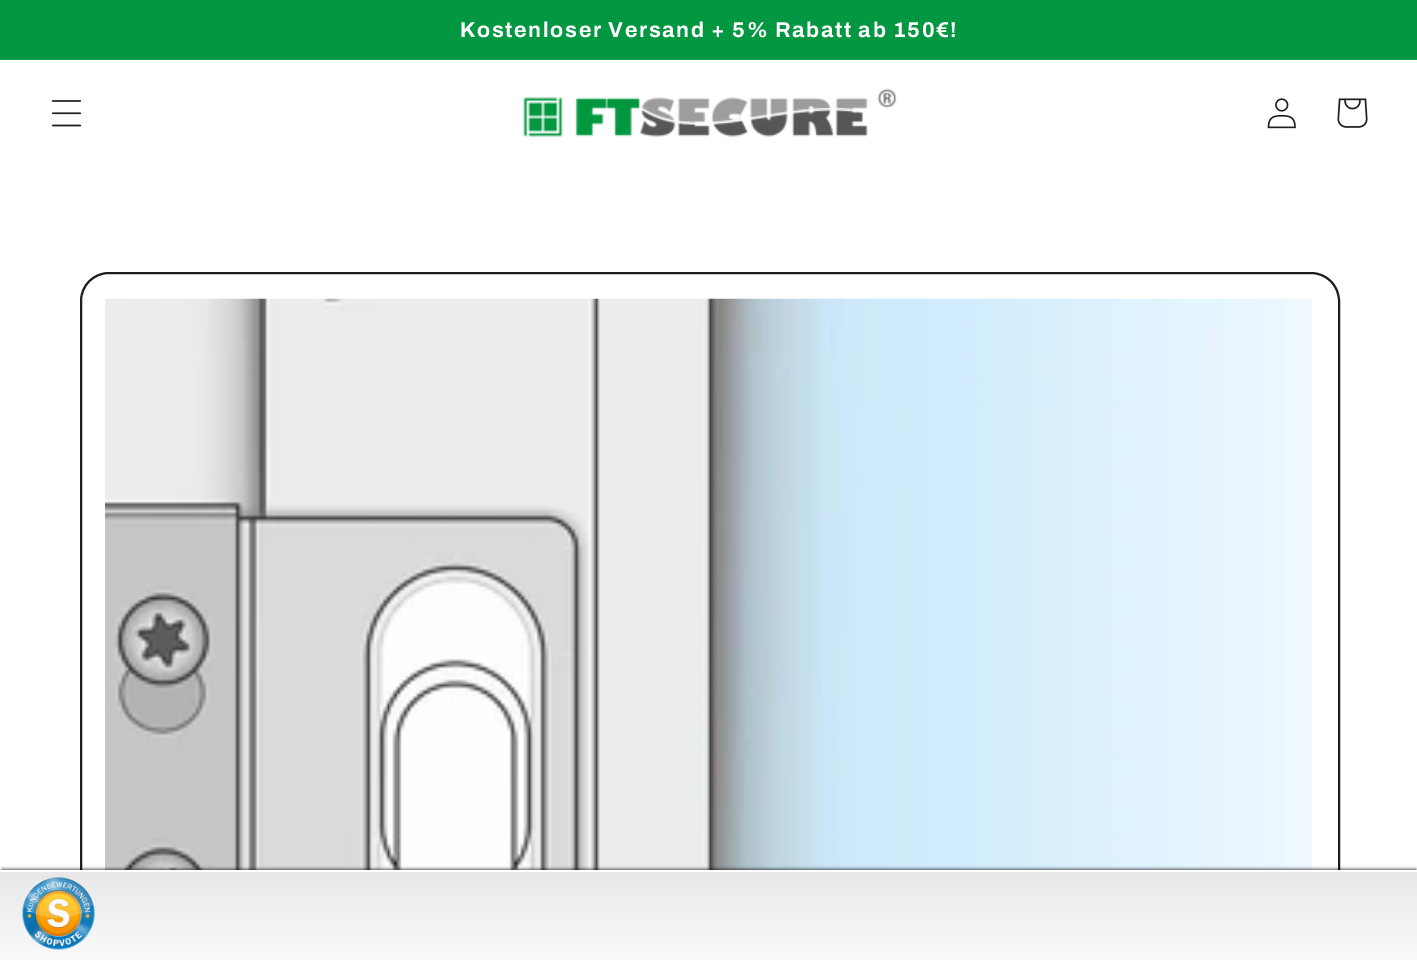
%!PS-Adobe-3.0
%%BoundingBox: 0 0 1417 960
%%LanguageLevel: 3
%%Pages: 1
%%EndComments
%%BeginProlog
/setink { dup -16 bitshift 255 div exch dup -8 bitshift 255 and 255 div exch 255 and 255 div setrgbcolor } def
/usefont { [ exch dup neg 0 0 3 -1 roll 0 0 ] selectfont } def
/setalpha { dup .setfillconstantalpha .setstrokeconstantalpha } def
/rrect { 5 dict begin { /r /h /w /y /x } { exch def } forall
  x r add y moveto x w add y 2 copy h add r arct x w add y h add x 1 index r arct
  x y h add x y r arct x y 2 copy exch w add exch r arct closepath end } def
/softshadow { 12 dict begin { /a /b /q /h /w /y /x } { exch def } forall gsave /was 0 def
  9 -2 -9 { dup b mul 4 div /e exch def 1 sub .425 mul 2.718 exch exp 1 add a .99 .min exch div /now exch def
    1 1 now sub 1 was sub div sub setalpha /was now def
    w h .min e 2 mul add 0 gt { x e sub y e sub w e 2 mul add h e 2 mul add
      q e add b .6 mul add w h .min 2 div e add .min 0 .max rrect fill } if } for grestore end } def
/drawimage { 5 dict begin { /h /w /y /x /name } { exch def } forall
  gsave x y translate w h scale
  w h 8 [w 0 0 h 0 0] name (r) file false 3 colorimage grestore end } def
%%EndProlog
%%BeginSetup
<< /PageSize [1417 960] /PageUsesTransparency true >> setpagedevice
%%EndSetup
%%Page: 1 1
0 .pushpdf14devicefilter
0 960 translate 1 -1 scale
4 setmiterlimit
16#FFFFFF setink
0 0 1417 960 rectfill
16#029740 setink
0 0 1417 59 rectfill
16#169F4F setink
0 59 1417 1 rectfill
/Archivo-Bold 21.45 usefont
16#FFFFFF setink
460 37 moveto 1.6 0 (Kostenloser Versand + 5% Rabatt ab 150€!) ashow
(img1.raw) 51 100 31 27 drawimage
(img2.raw) 523 88 374 49 drawimage
(img3.raw) 1267 98 29 31 drawimage
(img4.raw) 1337 98 31 30 drawimage
16#1E1E1E setink
2 setlinewidth
81 273 1258 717 28 rrect stroke
(img5.raw) 105 298 1208 572 drawimage
16#000000 setink
2 869 1414 87 0 1.5 0.65 softshadow
gsave 0 872 moveto 1417 872 lineto 1417 960 lineto 0 960 lineto closepath clip newpath
<< /ShadingType 2 /ColorSpace /DeviceRGB /Coords [709 872 709 960] /Extend [true true] /Function << /FunctionType 2 /Domain [0 1] /C0 [0.91 0.91 0.91] /C1 [0.98 0.98 0.98] /N 1 >> >> shfill grestore
16#FFFFFF setink
0 870 1417 2 rectfill
(img6.raw) 22 877 73 73 drawimage
.poppdf14devicefilter showpage
%%EOF
